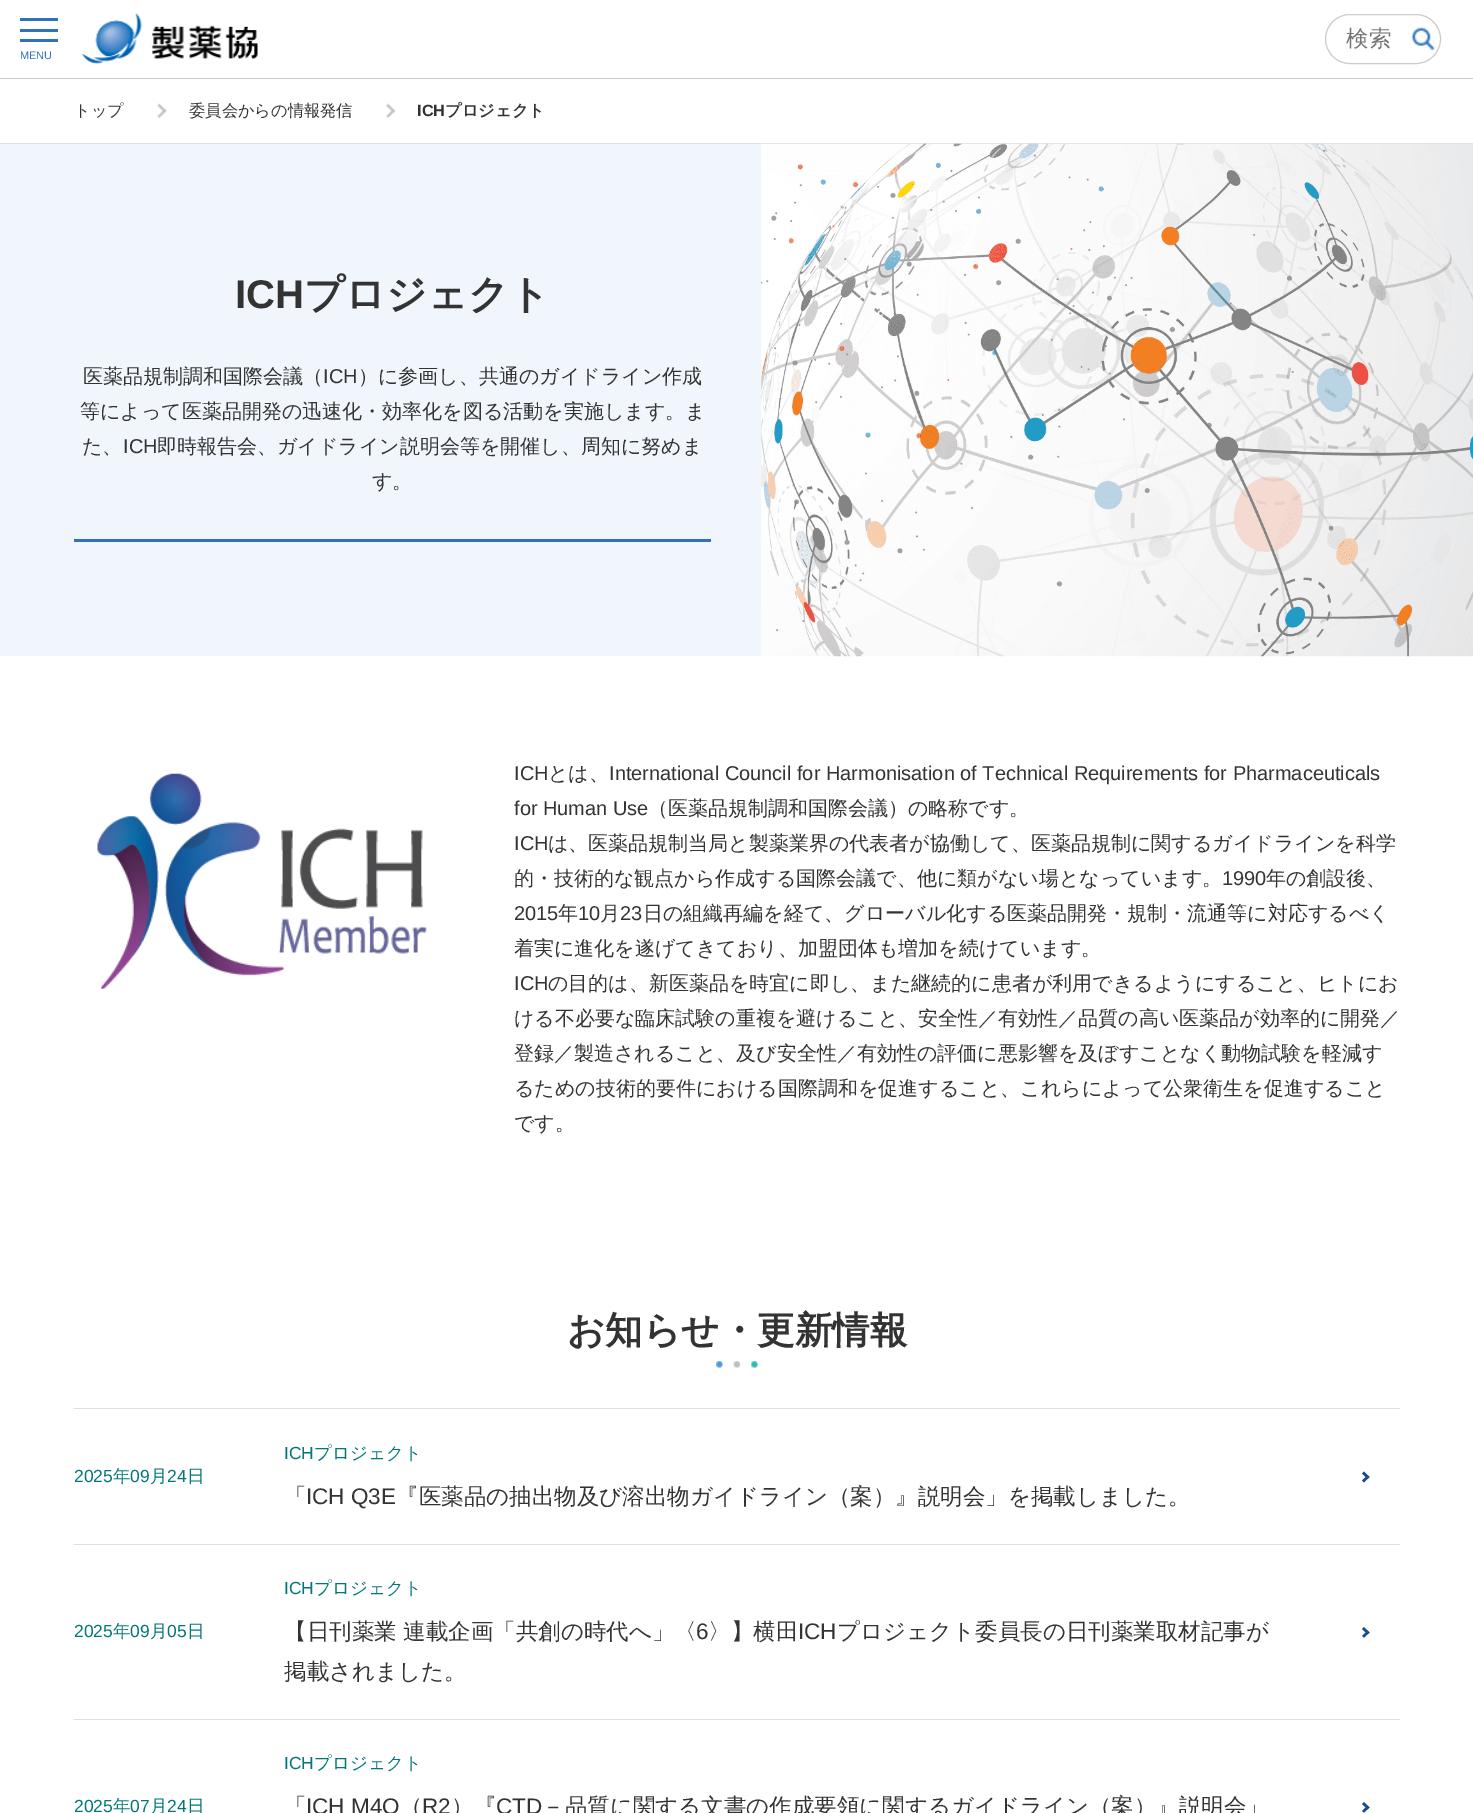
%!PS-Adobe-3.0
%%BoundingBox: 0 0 1473 1813
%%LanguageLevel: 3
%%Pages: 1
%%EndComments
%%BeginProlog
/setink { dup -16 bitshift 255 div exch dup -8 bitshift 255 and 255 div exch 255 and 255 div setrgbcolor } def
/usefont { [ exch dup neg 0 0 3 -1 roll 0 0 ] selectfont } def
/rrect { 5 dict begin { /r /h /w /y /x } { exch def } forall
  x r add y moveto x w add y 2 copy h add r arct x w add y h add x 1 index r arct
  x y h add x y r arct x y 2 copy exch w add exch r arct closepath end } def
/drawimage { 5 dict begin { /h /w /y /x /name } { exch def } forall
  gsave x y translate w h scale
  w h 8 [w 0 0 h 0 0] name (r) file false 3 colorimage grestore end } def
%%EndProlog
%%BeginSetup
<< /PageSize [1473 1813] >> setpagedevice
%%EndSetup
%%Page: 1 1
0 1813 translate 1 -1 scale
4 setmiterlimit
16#FFFFFF setink
0 0 1473 1813 rectfill
16#CCCCCC setink
0 78 1473 1 rectfill
(img1.raw) 82 13 176 51 drawimage
1325.5 14.5 115 49 24.5 rrect stroke
/WenQuanYiZenHei-Medium 22.5 usefont
16#757575 setink
1346 46 moveto (検索) show
(img2.raw) 1411 27 24 24 drawimage
[
    [20 18 38 3 16#2E72B9]
    [20 29 38 3 16#2E72B9]
    [20 39 38 3 16#2E72B9]
] { aload pop setink rectfill } forall
/LiberationSans-Regular 11 usefont
20 59 moveto (MENU) show
16#DDDFE2 setink
0 143 1473 1 rectfill
/WenQuanYiZenHei-Medium 16.25 usefont
16#333333 setink
74 116 moveto (トップ) show
(img3.raw) 157 103 10 15 drawimage
189 116 moveto (委員会からの情報発信) show
(img4.raw) 386 103 10 15 drawimage
/LiberationSans-Bold 16.25 usefont
417 116 moveto (ICH) show
/WenQuanYiZenHei-Bold 16.25 usefont
445 116 moveto (プロジェクト) show
16#F0F6FC setink
0 144 762 512 rectfill
16#2E72B9 setink
74 539 637 3 rectfill
/LiberationSans-Bold 40 usefont
16#333333 setink
235 308 moveto (ICH) show
/WenQuanYiZenHei-Bold 40 usefont
304 308 moveto (プロジェクト) show
/WenQuanYiZenHei-Medium 20 usefont
83 383 moveto (医薬品規制調和国際会議（) show
/LiberationSans-Regular 20 usefont
323 383 moveto (ICH) show
/WenQuanYiZenHei-Medium 20 usefont
[
    [(）に参画し、共通のガイドライン作成) 358 383]
    [(等によって医薬品開発の迅速化・効率化を図る活動を実施します。ま) 80 418]
    [(た、) 82 453]
] { aload pop moveto show } forall
/LiberationSans-Regular 20 usefont
123 453 moveto (ICH) show
/WenQuanYiZenHei-Medium 20 usefont
157 453 moveto (即時報告会、ガイドライン説明会等を開催し、周知に努めま) show
372 488 moveto (す。) show
(img5.raw) 761 143 712 514 drawimage
(img6.raw) 97 773 330 216 drawimage
/LiberationSans-Regular 20 usefont
514 780 moveto (ICH) show
/WenQuanYiZenHei-Medium 20 usefont
548 780 moveto (とは、) show
/LiberationSans-Regular 20 usefont
609 780 moveto (International Council for Harmonisation of Technical Requirements for Pharmaceuticals) show
514 815 moveto (for Human Use) show
/WenQuanYiZenHei-Medium 20 usefont
648 815 moveto (（医薬品規制調和国際会議）の略称です。) show
/LiberationSans-Regular 20 usefont
514 850 moveto (ICH) show
/WenQuanYiZenHei-Medium 20 usefont
548 850 moveto (は、医薬品規制当局と製薬業界の代表者が協働して、医薬品規制に関するガイドラインを科学) show
514 885 moveto (的・技術的な観点から作成する国際会議で、他に類がない場となっています。) show
/LiberationSans-Regular 20 usefont
1222 885 moveto (1990) show
/WenQuanYiZenHei-Medium 20 usefont
1266 885 moveto (年の創設後、) show
/LiberationSans-Regular 20 usefont
514 920 moveto (2015) show
/WenQuanYiZenHei-Medium 20 usefont
558 920 moveto (年) show
/LiberationSans-Regular 20 usefont
578 920 moveto (10) show
/WenQuanYiZenHei-Medium 20 usefont
600 920 moveto (月) show
/LiberationSans-Regular 20 usefont
620 920 moveto (23) show
/WenQuanYiZenHei-Medium 20 usefont
643 920 moveto (日の組織再編を経て、グローバル化する医薬品開発・規制・流通等に対応するべく) show
514 955 moveto (着実に進化を遂げてきており、加盟団体も増加を続けています。) show
/LiberationSans-Regular 20 usefont
514 990 moveto (ICH) show
/WenQuanYiZenHei-Medium 20 usefont
[
    [(の目的は、新医薬品を時宜に即し、また継続的に患者が利用できるようにすること、ヒトにお) 548 990]
    [(ける不必要な臨床試験の重複を避けること、安全性／有効性／品質の高い医薬品が効率的に開発／) 514 1025]
    [(登録／製造されること、及び安全性／有効性の評価に悪影響を及ぼすことなく動物試験を軽減す) 514 1060]
    [(るための技術的要件における国際調和を促進すること、これらによって公衆衛生を促進すること) 514 1095]
    [(です。) 514 1130]
] { aload pop moveto show } forall
/WenQuanYiZenHei-Bold 37.5 usefont
567 1343 moveto (お知らせ・更新情報) show
(img7.raw) 716 1361 42 7 drawimage
16#DDDFE2 setink
74 1408 1326 1 rectfill
74 1544 1326 1 rectfill
/LiberationSans-Regular 17.5 usefont
16#027777 setink
74 1482 moveto (2025) show
/WenQuanYiZenHei-Medium 17.5 usefont
113 1482 moveto (年) show
/LiberationSans-Regular 17.5 usefont
130 1482 moveto (09) show
/WenQuanYiZenHei-Medium 17.5 usefont
150 1482 moveto (月) show
/LiberationSans-Regular 17.5 usefont
167 1482 moveto (24) show
/WenQuanYiZenHei-Medium 17.5 usefont
187 1482 moveto (日) show
/LiberationSans-Regular 17.5 usefont
284 1459 moveto (ICH) show
/WenQuanYiZenHei-Medium 17.5 usefont
314 1459 moveto (プロジェクト) show
/WenQuanYiZenHei-Medium 22.5 usefont
16#333333 setink
284 1504 moveto (「) show
/LiberationSans-Regular 22.5 usefont
306 1504 moveto (ICH Q3E) show
/WenQuanYiZenHei-Medium 22.5 usefont
396 1504 moveto (『医薬品の抽出物及び溶出物ガイドライン（案）』説明会」を掲載しました。) show
16#164D8D setink
1364 1471.5 moveto 1369.5 1477 lineto 1367.5 1479 lineto 1362 1473.5 lineto closepath fill
1367.5 1475.5 moveto 1369.5 1477 lineto 1364 1482.5 lineto 1362 1480.5 lineto closepath fill
16#DDDFE2 setink
74 1719 1326 1 rectfill
/LiberationSans-Regular 17.5 usefont
16#027777 setink
74 1637 moveto (2025) show
/WenQuanYiZenHei-Medium 17.5 usefont
113 1637 moveto (年) show
/LiberationSans-Regular 17.5 usefont
130 1637 moveto (09) show
/WenQuanYiZenHei-Medium 17.5 usefont
150 1637 moveto (月) show
/LiberationSans-Regular 17.5 usefont
167 1637 moveto (05) show
/WenQuanYiZenHei-Medium 17.5 usefont
187 1637 moveto (日) show
/LiberationSans-Regular 17.5 usefont
284 1594 moveto (ICH) show
/WenQuanYiZenHei-Medium 17.5 usefont
314 1594 moveto (プロジェクト) show
/WenQuanYiZenHei-Medium 22.5 usefont
16#333333 setink
284 1639 moveto (【日刊薬業 連載企画「共創の時代へ」〈) show
/LiberationSans-Regular 22.5 usefont
696 1639 moveto (6) show
/WenQuanYiZenHei-Medium 22.5 usefont
708 1639 moveto (〉】横田) show
/LiberationSans-Regular 22.5 usefont
798 1639 moveto (ICH) show
/WenQuanYiZenHei-Medium 22.5 usefont
837 1639 moveto (プロジェクト委員長の日刊薬業取材記事が) show
284 1679 moveto (掲載されました。) show
16#164D8D setink
1364 1627 moveto 1369.5 1632.5 lineto 1367.5 1634 lineto 1362 1629 lineto closepath fill
1367.5 1630.5 moveto 1369.5 1632.5 lineto 1364 1637.5 lineto 1362 1636 lineto closepath fill
/LiberationSans-Regular 17.5 usefont
16#027777 setink
74 1812 moveto (2025) show
/WenQuanYiZenHei-Medium 17.5 usefont
113 1812 moveto (年) show
/LiberationSans-Regular 17.5 usefont
130 1812 moveto (07) show
/WenQuanYiZenHei-Medium 17.5 usefont
150 1812 moveto (月) show
/LiberationSans-Regular 17.5 usefont
167 1812 moveto (24) show
/WenQuanYiZenHei-Medium 17.5 usefont
187 1812 moveto (日) show
/LiberationSans-Regular 17.5 usefont
284 1769 moveto (ICH) show
/WenQuanYiZenHei-Medium 17.5 usefont
314 1769 moveto (プロジェクト) show
/WenQuanYiZenHei-Medium 22.5 usefont
16#333333 setink
284 1814 moveto (「) show
/LiberationSans-Regular 22.5 usefont
306 1814 moveto (ICH M4Q) show
/WenQuanYiZenHei-Medium 22.5 usefont
400 1814 moveto (（) show
/LiberationSans-Regular 22.5 usefont
422 1814 moveto (R2) show
/WenQuanYiZenHei-Medium 22.5 usefont
451 1814 moveto (）『) show
/LiberationSans-Regular 22.5 usefont
496 1814 moveto (CTD) show
/WenQuanYiZenHei-Medium 22.5 usefont
542 1814 moveto (－品質に関する文書の作成要領に関するガイドライン（案）』説明会」) show
16#164D8D setink
1364 1802 moveto 1369.5 1807.5 lineto 1367.5 1809 lineto 1362 1804 lineto closepath fill
1367.5 1805.5 moveto 1369.5 1807.5 lineto 1364 1812.5 lineto 1362 1811 lineto closepath fill
showpage
%%EOF
